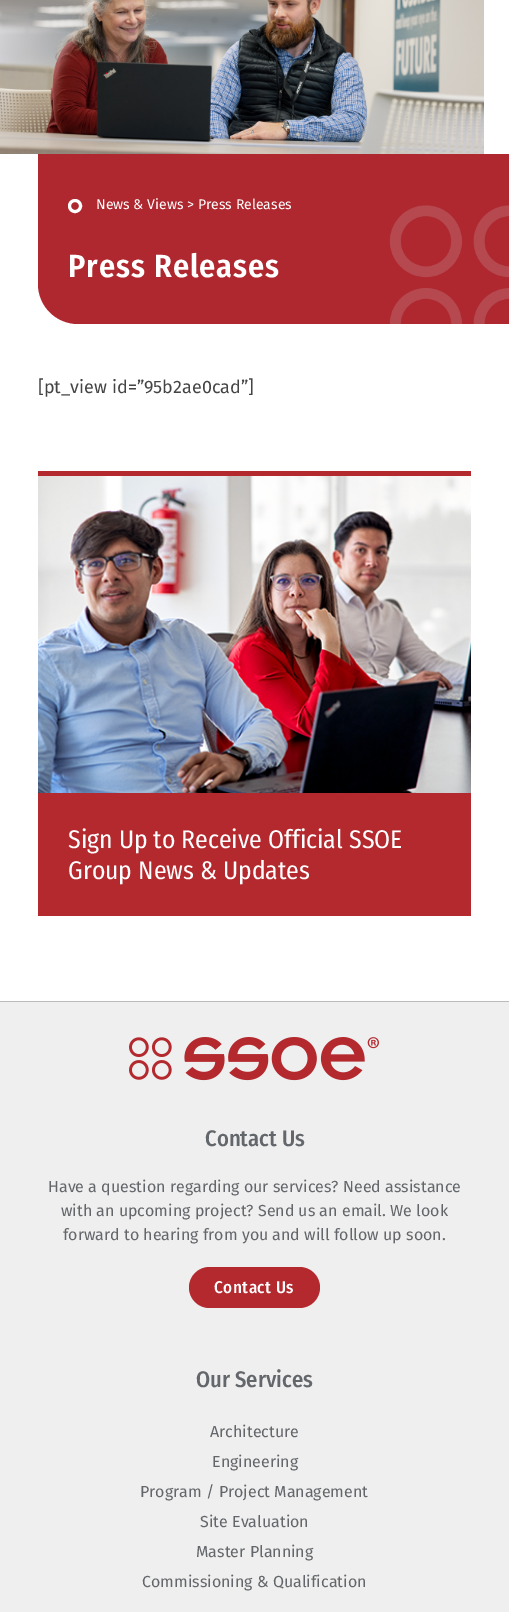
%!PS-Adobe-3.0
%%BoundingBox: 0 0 509 1612
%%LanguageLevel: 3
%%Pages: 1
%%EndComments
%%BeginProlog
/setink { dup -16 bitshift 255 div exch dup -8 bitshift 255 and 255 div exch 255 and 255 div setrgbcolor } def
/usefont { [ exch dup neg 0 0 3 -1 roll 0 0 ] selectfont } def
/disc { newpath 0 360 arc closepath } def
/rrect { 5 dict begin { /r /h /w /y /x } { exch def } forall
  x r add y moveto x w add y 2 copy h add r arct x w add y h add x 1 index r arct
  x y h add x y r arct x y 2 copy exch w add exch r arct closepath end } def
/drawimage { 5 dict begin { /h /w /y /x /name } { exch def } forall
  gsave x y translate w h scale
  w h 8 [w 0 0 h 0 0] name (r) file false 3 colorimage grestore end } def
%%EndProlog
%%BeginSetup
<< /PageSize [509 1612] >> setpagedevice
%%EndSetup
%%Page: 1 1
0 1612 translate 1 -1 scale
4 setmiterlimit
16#FFFFFF setink
0 0 509 1612 rectfill
(img1.raw) 0 0 484 154 drawimage
16#AF272F setink
38 154 moveto 471 154 lineto 471 324 lineto 78 324 lineto 56 324 38 306 38 284 curveto closepath fill
16#FFFFFF setink
3 setlinewidth
75 206 5.5 disc stroke
/FiraSans-Regular 14 usefont
96 209 moveto (News & Views > Press Releases) show
/FiraSansCondensed-SemiBold 32 usefont
68 277 moveto 1 0 (Press Releases) ashow
16#AF272F setink
471 154 38 170 rectfill
(img2.raw) 389 205 120 119 drawimage
/FiraSans-Regular 18 usefont
16#444444 setink
38 393 moveto ([pt_view id=”95b2ae0cad”]) show
16#B3292E setink
38 471 433 445 rectfill
(img3.raw) 38 476 433 317 drawimage
/FiraSansCondensed-Regular 25.6 usefont
16#FFFFFF setink
68 848 moveto (Sign Up to Receive Official SSOE) show
68 879 moveto (Group News & Updates) show
16#EFEFEF setink
0 1002 509 610 rectfill
16#BBBBBB setink
0 1001 509 1 rectfill
(img4.raw) 129 1037 250 44 drawimage
/FiraSansCondensed-Medium 22.5 usefont
16#63666A setink
205 1146 moveto (Contact Us) show
/FiraSans-Regular 16 usefont
[
    [(Have a question regarding our services? Need assistance) 48 1192]
    [(with an upcoming project? Send us an email. We look) 61 1216]
    [(forward to hearing from you and will follow up soon.) 63 1240]
] { aload pop moveto show } forall
16#B3292E setink
189 1267 131 41 20.5 rrect fill
/FiraSansCondensed-Medium 17 usefont
16#FFFFFF setink
214 1293 moveto 0.5 0 (Contact Us) ashow
/FiraSansCondensed-Medium 22.5 usefont
16#63666A setink
196 1387 moveto (Our Services) show
/FiraSans-Regular 16 usefont
[
    [(Architecture) 210 1437]
    [(Engineering) 212 1467]
    [(Program / Project Management) 140 1497]
    [(Site Evaluation) 200 1527]
    [(Master Planning) 196 1557]
    [(Commissioning & Qualification) 142 1587]
] { aload pop moveto show } forall
showpage
%%EOF
